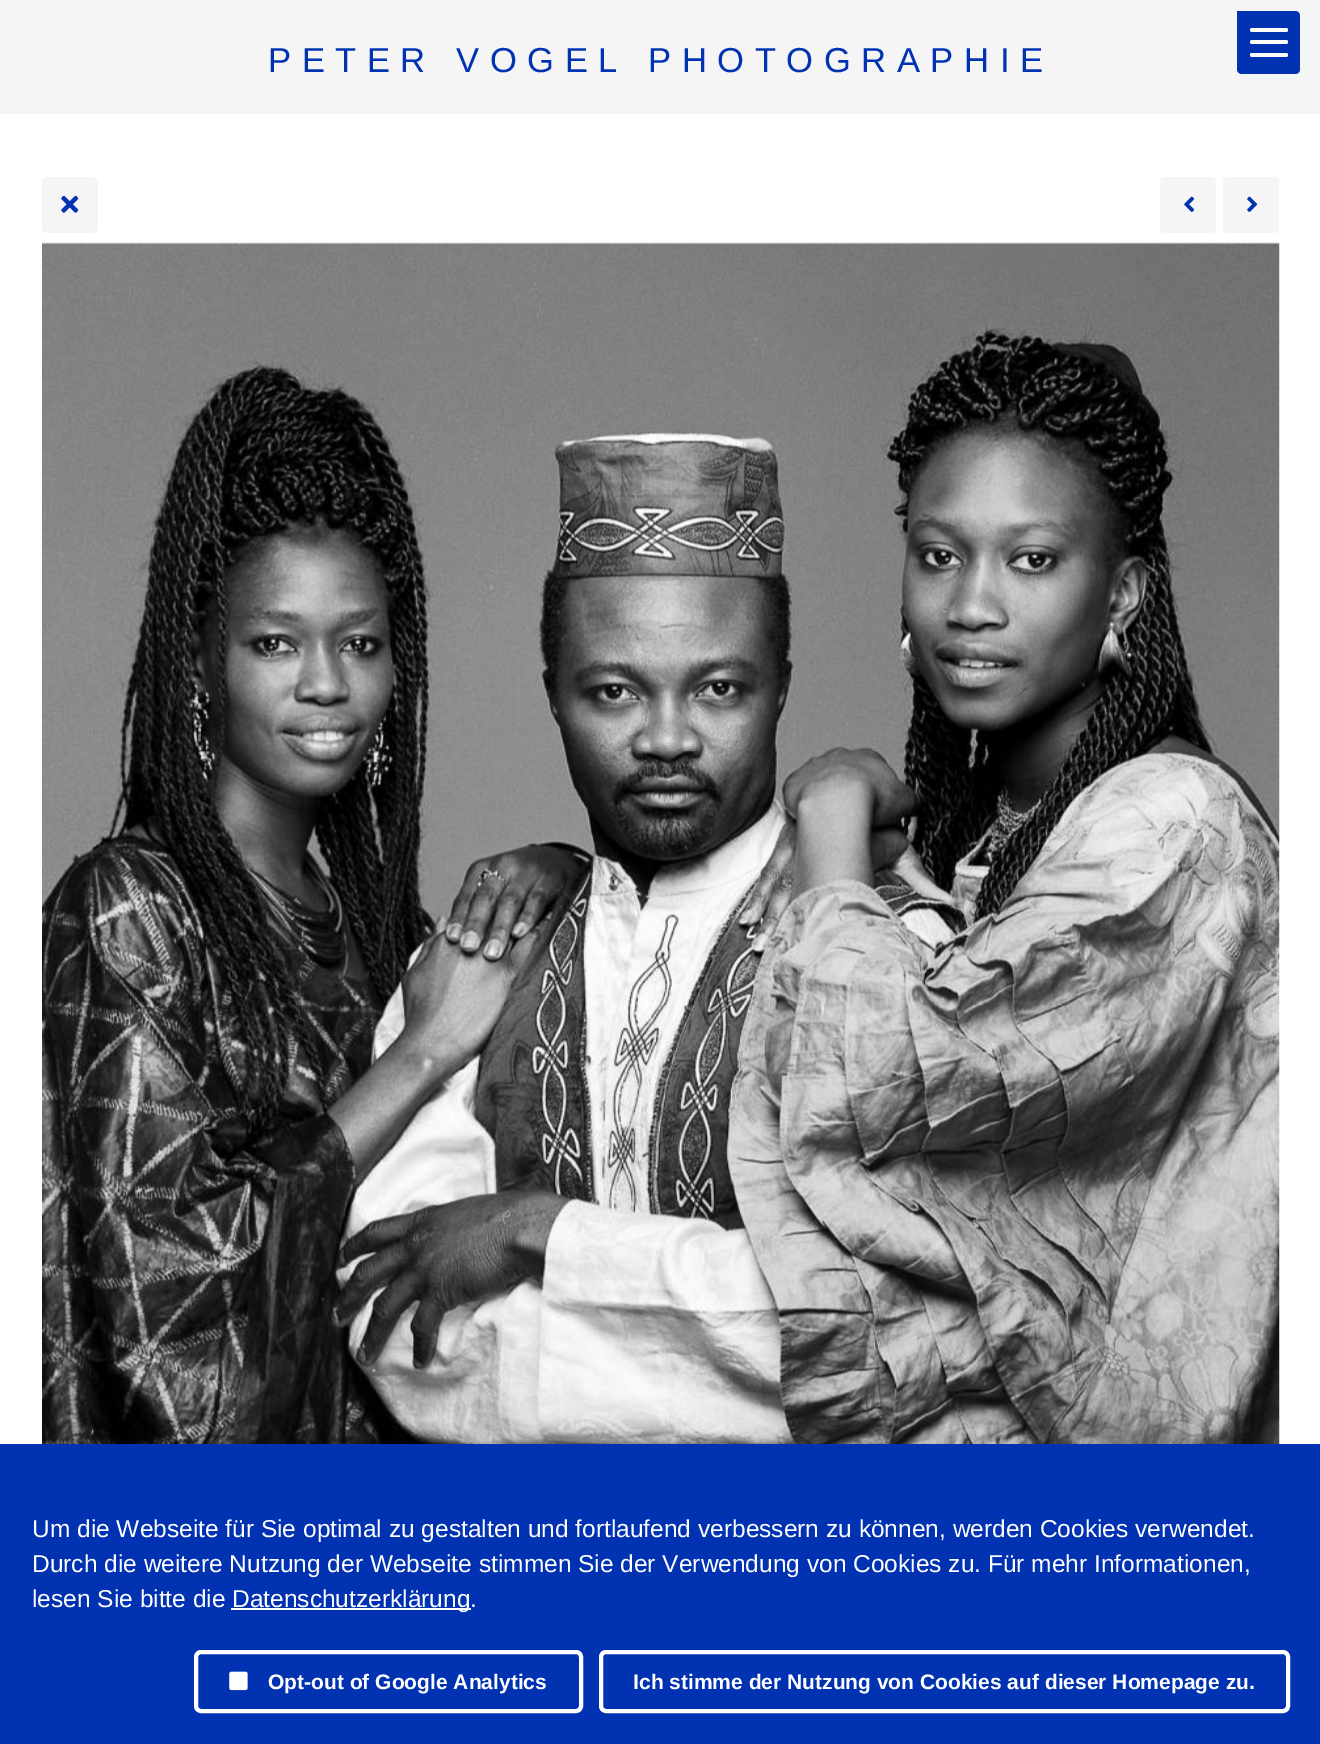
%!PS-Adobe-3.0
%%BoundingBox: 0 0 1320 1744
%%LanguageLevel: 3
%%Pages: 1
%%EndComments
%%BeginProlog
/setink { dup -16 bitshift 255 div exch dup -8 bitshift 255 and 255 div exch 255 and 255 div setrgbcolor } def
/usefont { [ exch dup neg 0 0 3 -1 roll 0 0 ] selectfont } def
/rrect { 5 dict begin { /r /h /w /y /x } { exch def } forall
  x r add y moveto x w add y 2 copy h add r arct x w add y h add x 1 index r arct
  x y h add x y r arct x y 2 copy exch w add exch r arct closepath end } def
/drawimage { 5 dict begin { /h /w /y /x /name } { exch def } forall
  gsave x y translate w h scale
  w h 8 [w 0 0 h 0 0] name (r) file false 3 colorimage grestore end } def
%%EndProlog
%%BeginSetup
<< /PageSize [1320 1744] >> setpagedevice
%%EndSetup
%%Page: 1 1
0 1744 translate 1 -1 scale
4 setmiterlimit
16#FFFFFF setink
0 0 1320 1744 rectfill
16#F5F5F5 setink
0 0 1320 114 rectfill
/LiberationSans-Regular 34.65 usefont
16#0032B2 setink
268 72 moveto 10.5 0 (PETER VOGEL PHOTOGRAPHIE) ashow
16#F5F5F5 setink
42 177 56 56 5 rrect fill
(img1.raw) 61 195 18 18 drawimage
1160 177 56 56 5 rrect fill
(img2.raw) 1184 196 10 16 drawimage
1223 177 56 56 5 rrect fill
(img3.raw) 1247 196 10 16 drawimage
(img4.raw) 42 242 1238 1202 drawimage
16#0032B2 setink
1237 11 moveto 1295 11 lineto 1298 11 1300 13 1300 16 curveto 1300 69 lineto 1300 72 1298 74 1295 74 curveto 1242 74 lineto 1239 74 1237 72 1237 69 curveto closepath fill
16#FFFFFF setink
1250 28 38 4 2 rrect fill
1250 40 38 4 2 rrect fill
1250 53 38 4 2 rrect fill
16#0032B2 setink
0 1444 1320 300 rectfill
/LiberationSans-Regular 24.5 usefont
16#FFFFFF setink
[
    [(Um die Webseite für Sie optimal zu gestalten und fortlaufend verbessern zu können, werden Cookies verwendet.) 32 1537]
    [(Durch die weitere Nutzung der Webseite stimmen Sie der Verwendung von Cookies zu. Für mehr Informationen,) 32 1572]
    [(lesen Sie bitte die) 32 1607]
] { aload pop moveto show } forall
231 1608 240 2 rectfill
232 1607 moveto (Datenschutzerklärung.) show
4 setlinewidth
196 1652 385 59 5 rrect stroke
(img5.raw) 229 1671 19 20 drawimage
/LiberationSans-Bold 21 usefont
268 1689 moveto (Opt-out of Google Analytics) show
601 1652 687 59 5 rrect stroke
633 1689 moveto (Ich stimme der Nutzung von Cookies auf dieser Homepage zu.) show
showpage
%%EOF
